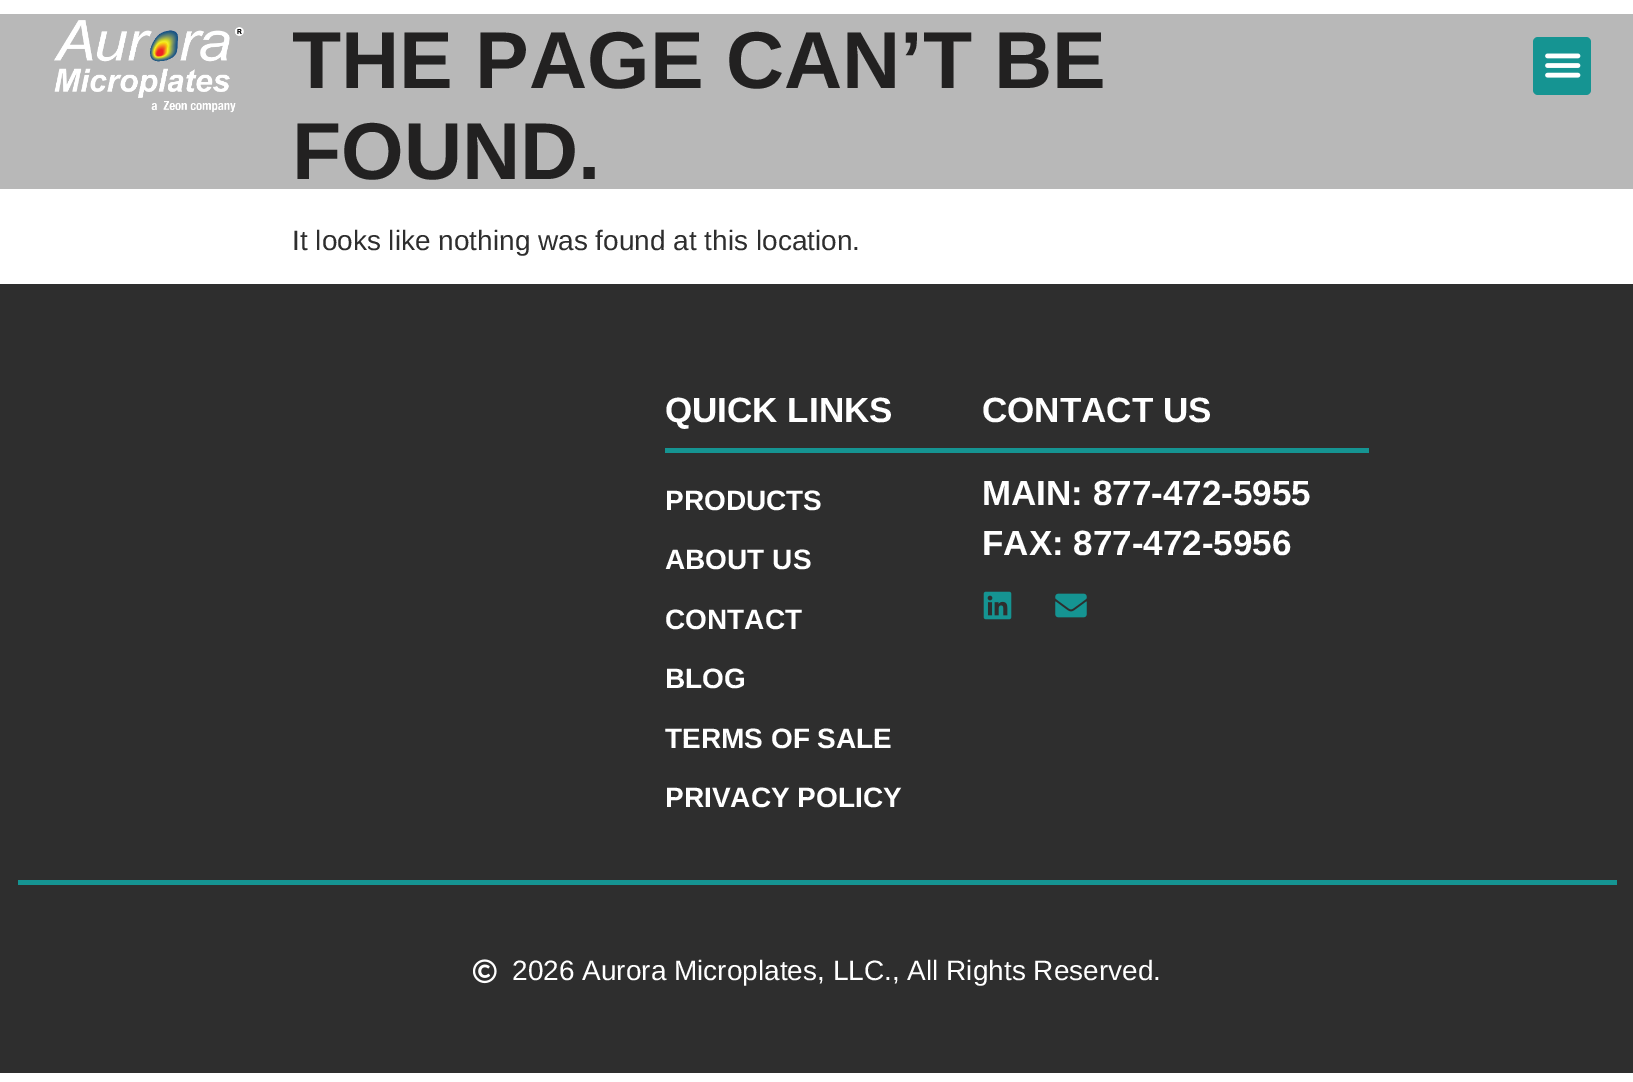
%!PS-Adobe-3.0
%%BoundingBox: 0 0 1633 1082
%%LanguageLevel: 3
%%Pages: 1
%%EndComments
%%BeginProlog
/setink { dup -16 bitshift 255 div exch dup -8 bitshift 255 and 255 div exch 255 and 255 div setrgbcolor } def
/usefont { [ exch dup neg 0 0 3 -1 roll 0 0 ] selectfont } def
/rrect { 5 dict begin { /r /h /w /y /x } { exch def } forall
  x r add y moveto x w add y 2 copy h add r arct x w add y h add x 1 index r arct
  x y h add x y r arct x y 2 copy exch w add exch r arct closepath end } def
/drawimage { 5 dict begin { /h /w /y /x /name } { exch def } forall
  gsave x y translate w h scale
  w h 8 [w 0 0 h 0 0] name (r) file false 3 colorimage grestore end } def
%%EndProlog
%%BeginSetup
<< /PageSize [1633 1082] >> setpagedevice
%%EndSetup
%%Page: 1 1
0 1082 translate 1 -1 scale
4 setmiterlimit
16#FFFFFF setink
0 0 1633 1082 rectfill
16#B8B8B8 setink
0 14 1633 175 rectfill
(img1.raw) 54 20 190 93 drawimage
16#159492 setink
1533 37 58 58 5 rrect fill
(img2.raw) 1545 53 36 25 drawimage
/LiberationSans-Bold 80.5 usefont
16#222121 setink
292 88 moveto (THE PAGE CAN’T BE) show
292 179 moveto (FOUND.) show
/LiberationSans-Regular 28 usefont
16#2E2E2E setink
292 250 moveto (It looks like nothing was found at this location.) show
0 284 1633 789 rectfill
16#159492 setink
665 448 704 5 rectfill
/LiberationSans-Bold 35 usefont
16#FFFFFF setink
665 422 moveto (QUICK LINKS) show
982 422 moveto (CONTACT US) show
/LiberationSans-Bold 28 usefont
[
    [(PRODUCTS) 665 510]
    [(ABOUT US) 665 569]
    [(CONTACT) 665 629]
    [(BLOG) 665 688]
    [(TERMS OF SALE) 665 748]
    [(PRIVACY POLICY) 665 807]
] { aload pop moveto show } forall
/LiberationSans-Bold 35 usefont
982 505 moveto (MAIN: 877-472-5955) show
982 555 moveto (FAX: 877-472-5956) show
(img3.raw) 983 591 29 29 drawimage
(img4.raw) 1055 593 32 25 drawimage
16#159492 setink
18 880 1599 5 rectfill
(img5.raw) 473 959 24 25 drawimage
/LiberationSans-Regular 28 usefont
16#FFFFFF setink
512 980 moveto (2026 Aurora Microplates, LLC., All Rights Reserved.) show
showpage
%%EOF
